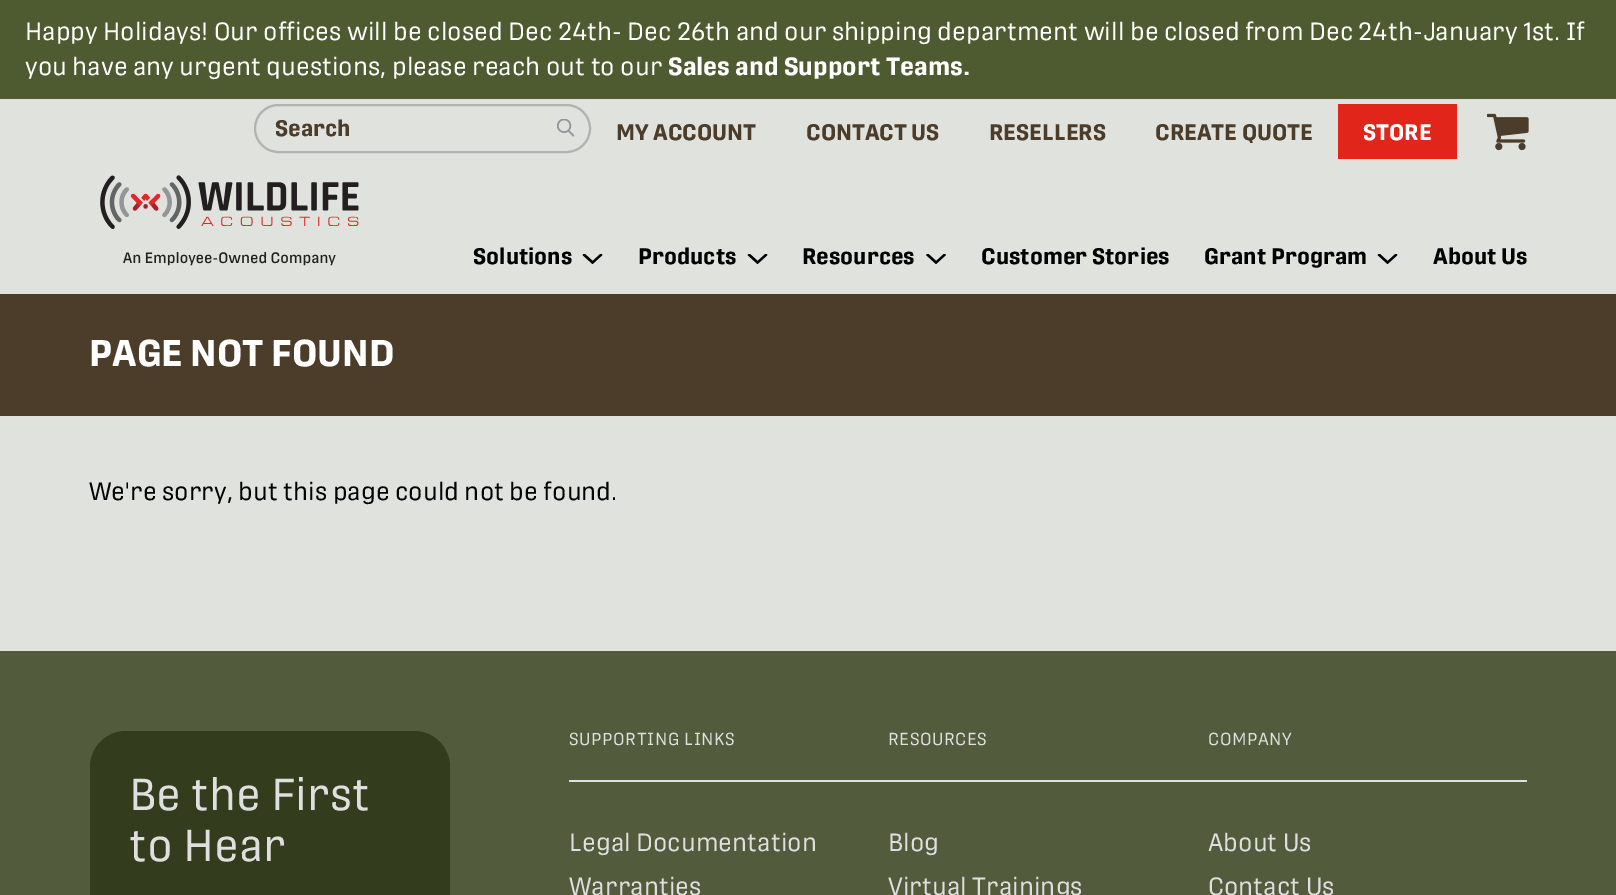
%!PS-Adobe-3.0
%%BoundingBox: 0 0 1616 895
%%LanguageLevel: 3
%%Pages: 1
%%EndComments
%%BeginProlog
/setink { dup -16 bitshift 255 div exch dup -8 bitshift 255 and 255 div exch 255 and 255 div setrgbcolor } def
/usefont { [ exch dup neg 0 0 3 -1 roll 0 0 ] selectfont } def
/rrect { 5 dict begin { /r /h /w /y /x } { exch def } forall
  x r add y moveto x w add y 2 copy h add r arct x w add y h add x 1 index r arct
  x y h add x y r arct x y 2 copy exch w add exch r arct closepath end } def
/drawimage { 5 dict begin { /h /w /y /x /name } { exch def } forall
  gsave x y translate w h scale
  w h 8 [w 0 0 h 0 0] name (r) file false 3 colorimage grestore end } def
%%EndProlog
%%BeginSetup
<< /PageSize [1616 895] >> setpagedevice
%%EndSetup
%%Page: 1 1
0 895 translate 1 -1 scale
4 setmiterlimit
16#E0E2DD setink
0 0 1616 895 rectfill
16#4E5B31 setink
0 0 1616 99 rectfill
/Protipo-Regular 24.75 usefont
16#FFFFFF setink
25 40 moveto (Happy Holidays! Our offices will be closed Dec 24th- Dec 26th and our shipping department will be closed from Dec 24th-January 1st. If) show
25 75 moveto (you have any urgent questions, please reach out to our) show
/Protipo-Bold 24.75 usefont
668 75 moveto (Sales and Support Teams.) show
16#B2B2B2 setink
2 setlinewidth
255 105 335 47 23.5 rrect stroke
/Protipo-Bold 22.25 usefont
16#4B3D2A setink
275 136 moveto (Search) show
(img1.raw) 557 119 18 18 drawimage
[
    [(MY ACCOUNT) 616 140]
    [(CONTACT US) 806 140]
    [(RESELLERS) 989 140]
    [(CREATE QUOTE) 1155 140]
] { aload pop moveto show } forall
16#E1251B setink
1338 104 119 55 rectfill
16#FFFFFF setink
1363 140 moveto (STORE) show
(img2.raw) 1487 113 42 38 drawimage
(img3.raw) 100 175 259 91 drawimage
16#000000 setink
473 264 moveto (Solutions) show
(img4.raw) 582 254 21 10 drawimage
638 264 moveto (Products) show
(img4.raw) 747 254 21 10 drawimage
802 264 moveto (Resources) show
(img5.raw) 926 254 20 10 drawimage
981 264 moveto (Customer Stories) show
1204 264 moveto (Grant Program) show
(img4.raw) 1377 254 21 10 drawimage
1433 264 moveto (About Us) show
16#4B3D2A setink
0 294 1616 122 rectfill
/Protipo-Bold 37 usefont
16#FFFFFF setink
89 366 moveto (PAGE NOT FOUND) show
/Protipo-Regular 24.75 usefont
16#000000 setink
89 500 moveto (We're sorry, but this page could not be found.) show
16#525B3B setink
0 651 1616 244 rectfill
16#333D1D setink
90 731 360 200 36 rrect fill
/Protipo-Regular 44.5 usefont
16#DFDFDF setink
129 810 moveto (Be the First) show
129 861 moveto (to Hear) show
569 780 958 2 rectfill
/Protipo-Regular 17.25 usefont
569 745 moveto 0.6 0 (SUPPORTING LINKS) ashow
/Protipo-Regular 24.75 usefont
569 851 moveto (Legal Documentation) show
569 895 moveto (Warranties) show
/Protipo-Regular 17.25 usefont
888 745 moveto 0.6 0 (RESOURCES) ashow
/Protipo-Regular 24.75 usefont
888 851 moveto (Blog) show
888 895 moveto (Virtual Trainings) show
/Protipo-Regular 17.25 usefont
1208 745 moveto 0.6 0 (COMPANY) ashow
/Protipo-Regular 24.75 usefont
1208 851 moveto (About Us) show
1208 895 moveto (Contact Us) show
showpage
%%EOF
